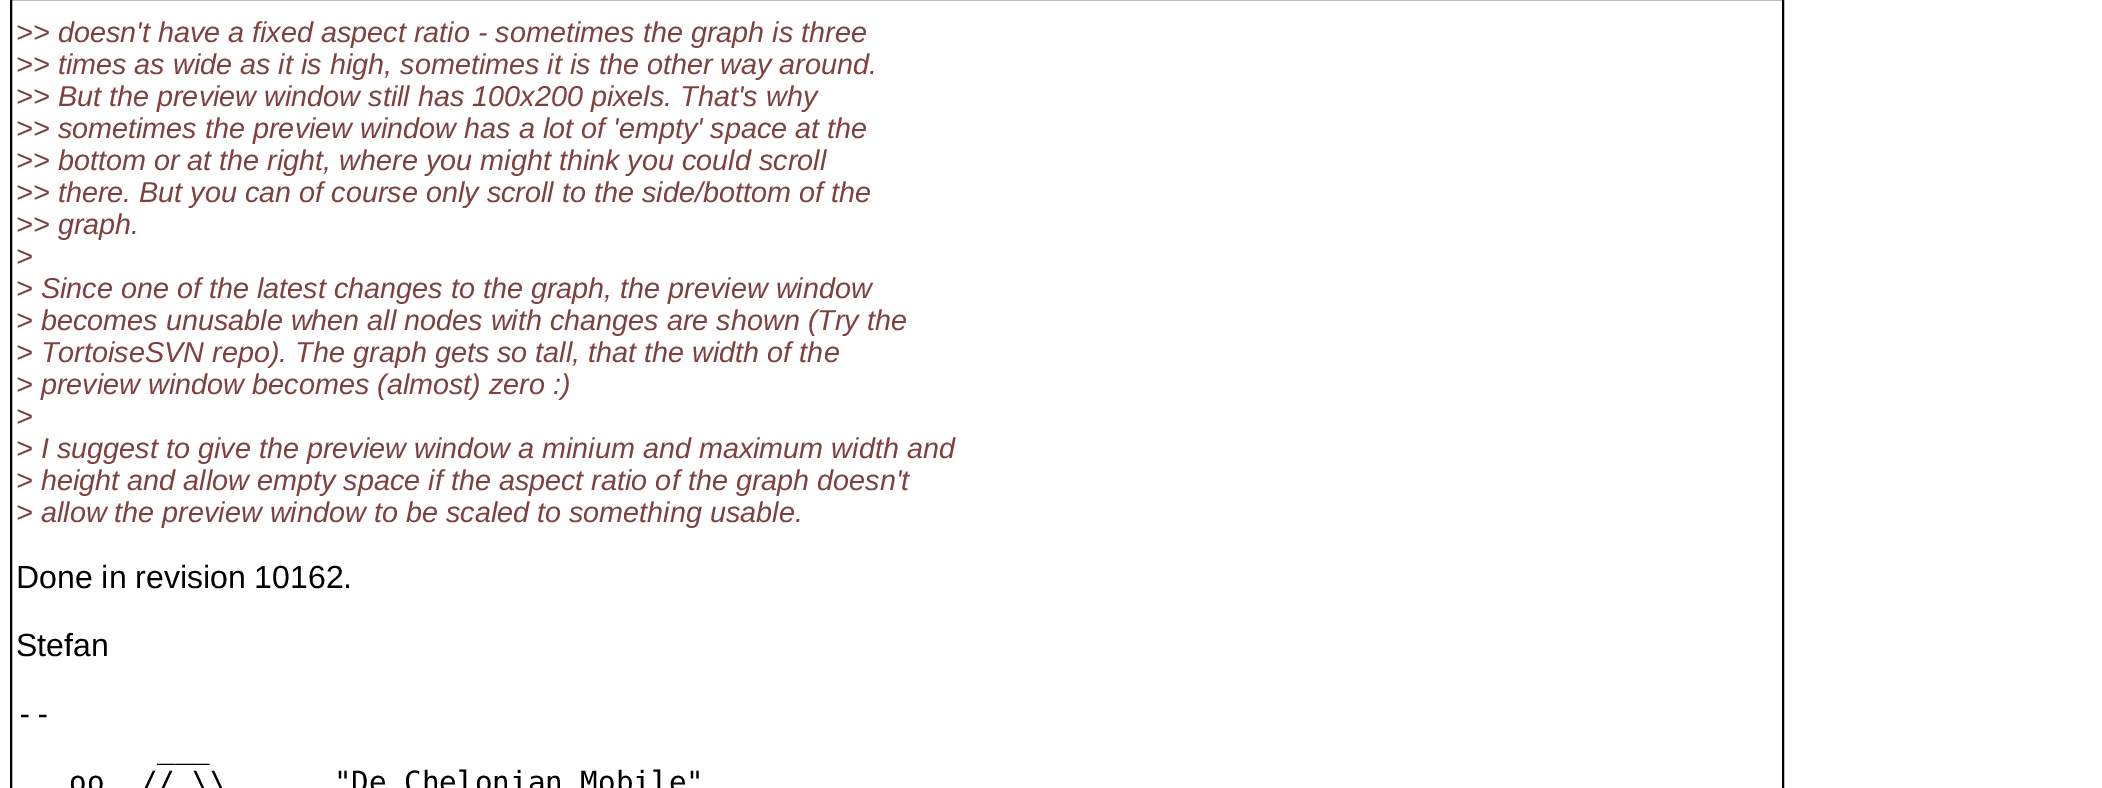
%!PS-Adobe-3.0
%%BoundingBox: 0 0 2102 788
%%LanguageLevel: 3
%%Pages: 1
%%EndComments
%%BeginProlog
/setink { dup -16 bitshift 255 div exch dup -8 bitshift 255 and 255 div exch 255 and 255 div setrgbcolor } def
/usefont { [ exch dup neg 0 0 3 -1 roll 0 0 ] selectfont } def
%%EndProlog
%%BeginSetup
<< /PageSize [2102 788] >> setpagedevice
%%EndSetup
%%Page: 1 1
0 788 translate 1 -1 scale
4 setmiterlimit
16#FFFFFF setink
0 0 2102 788 rectfill
16#000000 setink
2 setlinewidth
11 -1 1772 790 rectstroke
/LiberationSans-Italic 28.8 usefont
16#804040 setink
[
    [(>> doesn't have a fixed aspect ratio - sometimes the graph is three) 16 42]
    [(>> times as wide as it is high, sometimes it is the other way around.) 16 74]
    [(>> But the preview window still has 100x200 pixels. That's why) 16 106]
    [(>> sometimes the preview window has a lot of 'empty' space at the) 16 138]
    [(>> bottom or at the right, where you might think you could scroll) 16 170]
    [(>> there. But you can of course only scroll to the side/bottom of the) 16 202]
    [(>> graph.) 16 234]
    [(>) 16 266]
    [(> Since one of the latest changes to the graph, the preview window) 16 298]
    [(> becomes unusable when all nodes with changes are shown \(Try the) 16 330]
    [(> TortoiseSVN repo\). The graph gets so tall, that the width of the) 16 362]
    [(> preview window becomes \(almost\) zero :\)) 16 394]
    [(>) 16 426]
    [(> I suggest to give the preview window a minium and maximum width and) 16 458]
    [(> height and allow empty space if the aspect ratio of the graph doesn't) 16 490]
    [(> allow the preview window to be scaled to something usable.) 16 522]
] { aload pop moveto show } forall
/LiberationSans-Regular 32 usefont
16#000000 setink
16 588 moveto (Done in revision 10162.) show
16 656 moveto (Stefan) show
/DejaVuSansMono-Regular 29.3 usefont
[
    [(--) 16 724]
    [(___) 157 758]
    [(oo  // \\\\      "De Chelonian Mobile") 69 792]
] { aload pop moveto show } forall
showpage
%%EOF
